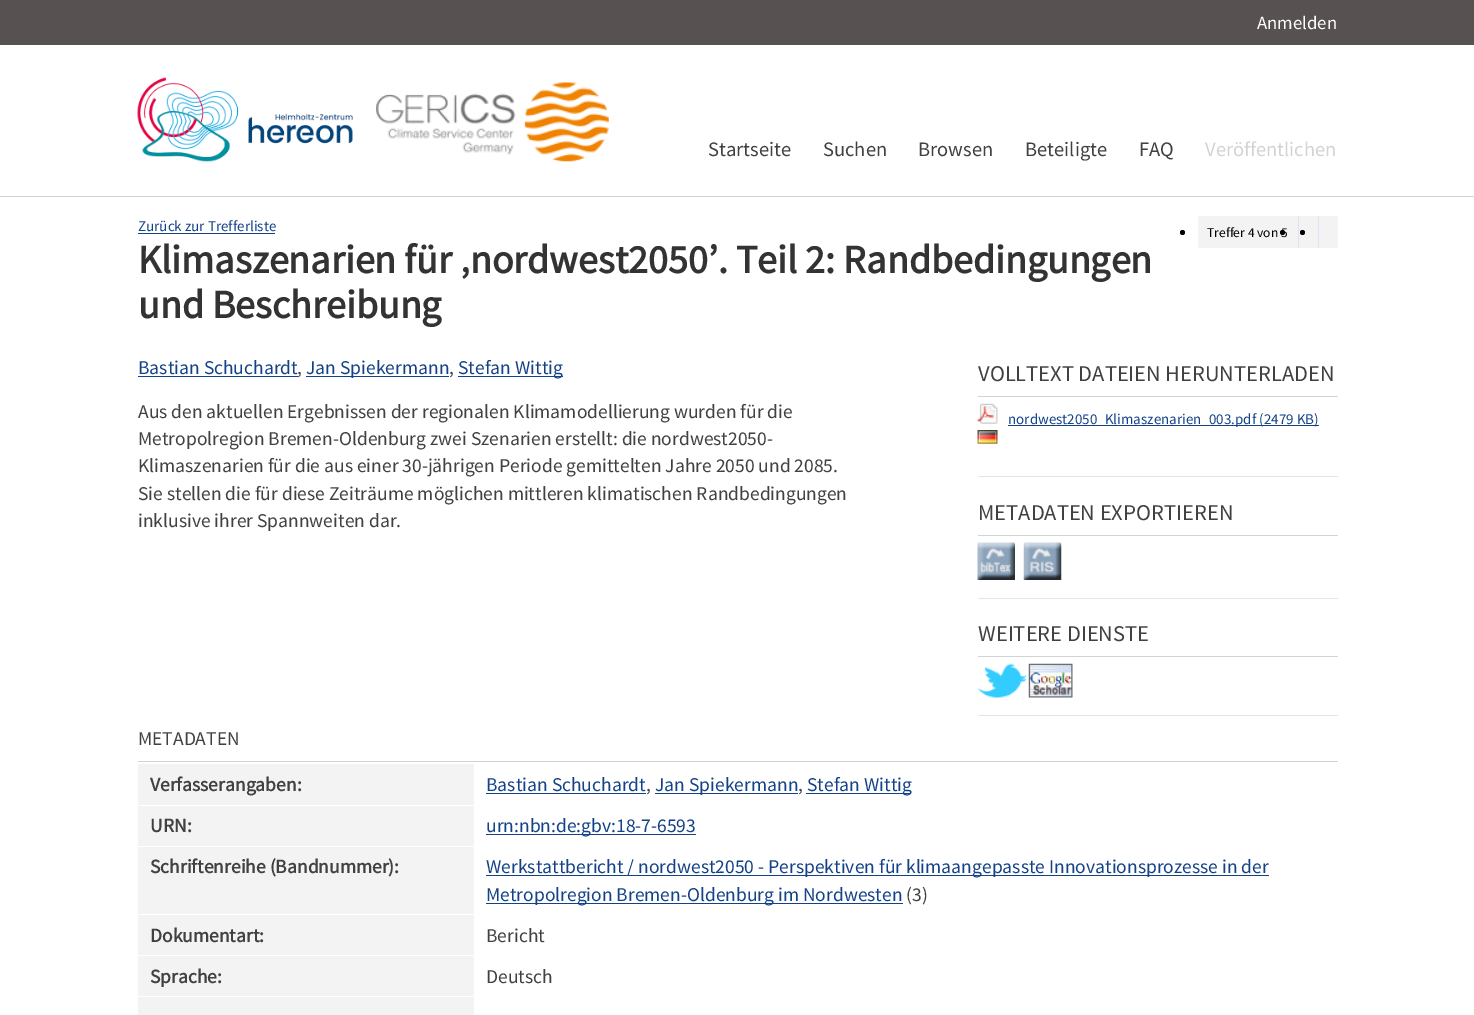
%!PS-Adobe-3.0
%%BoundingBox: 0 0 1474 1015
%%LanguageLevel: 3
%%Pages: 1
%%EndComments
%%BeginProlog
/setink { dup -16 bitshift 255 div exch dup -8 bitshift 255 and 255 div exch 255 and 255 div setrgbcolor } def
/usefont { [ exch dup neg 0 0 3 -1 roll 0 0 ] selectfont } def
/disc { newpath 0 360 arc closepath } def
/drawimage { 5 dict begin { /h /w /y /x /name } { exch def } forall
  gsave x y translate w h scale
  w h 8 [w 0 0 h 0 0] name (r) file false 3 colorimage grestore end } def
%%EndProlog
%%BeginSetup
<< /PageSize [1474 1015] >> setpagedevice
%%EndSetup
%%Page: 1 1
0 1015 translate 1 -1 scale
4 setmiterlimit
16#FFFFFF setink
0 0 1474 1015 rectfill
16#585151 setink
0 0 1474 45 rectfill
/SourceSansPro-Regular 18.75 usefont
16#FFFFFF setink
1257 29 moveto (Anmelden) show
16#D2D3D4 setink
0 196 1474 1 rectfill
(img1.raw) 137 77 216 85 drawimage
(img2.raw) 376 82 233 80 drawimage
/SourceSansPro-Regular 20.5 usefont
16#414042 setink
[
    [(Startseite) 708 156]
    [(Suchen) 823 156]
    [(Browsen) 918 156]
    [(Beteiligte) 1025 156]
    [(FAQ) 1139 156]
] { aload pop moveto show } forall
16#D3D3D3 setink
1205 156 moveto (Veröffentlichen) show
/SourceSansPro-Regular 15 usefont
16#144288 setink
138 231 moveto (Zurück zur Trefferliste) show
138 233 137 1 rectfill
16#F3F3F3 setink
1198 216 140 32 rectfill
16#000000 setink
1182.5 232.5 2.5 disc fill
/SourceSansPro-Regular 13.5 usefont
1207 237 moveto (Treffer 4 von 5) show
16#DAE5F3 setink
1298 216 1 32 rectfill
16#000000 setink
1282.5 232.5 2.5 disc fill
16#DAE5F3 setink
1318 216 1 32 rectfill
16#000000 setink
1302.5 232.5 2.5 disc fill
/SourceSansPro-Bold 40 usefont
16#333333 setink
138 273 moveto (Klimaszenarien für ‚nordwest2050’. Teil 2: Randbedingungen) show
138 318 moveto (und Beschreibung) show
/SourceSansPro-Regular 19.5 usefont
16#144288 setink
138 374 moveto (Bastian Schuchardt) show
138 376 160 1 rectfill
16#414042 setink
297 374 moveto (,) show
16#144288 setink
306 376 143 1 rectfill
306 374 moveto (Jan Spiekermann) show
16#414042 setink
449 374 moveto (,) show
16#144288 setink
458 376 105 1 rectfill
458 374 moveto (Stefan Wittig) show
16#414042 setink
[
    [(Aus den aktuellen Ergebnissen der regionalen Klimamodellierung wurden für die) 138 418]
    [(Metropolregion Bremen-Oldenburg zwei Szenarien erstellt: die nordwest2050-) 138 445]
    [(Klimaszenarien für die aus einer 30-jährigen Periode gemittelten Jahre 2050 und 2085.) 138 472]
    [(Sie stellen die für diese Zeiträume möglichen mittleren klimatischen Randbedingungen) 138 500]
    [(inklusive ihrer Spannweiten dar.) 138 527]
] { aload pop moveto show } forall
16#E2E6E9 setink
978 476 360 1 rectfill
16#D2D3D4 setink
978 396 360 1 rectfill
/SourceSansPro-Regular 22.5 usefont
16#414042 setink
978 381 moveto (VOLLTEXT DATEIEN HERUNTERLADEN) show
(img3.raw) 977 403 21 21 drawimage
16#144288 setink
1008 425 311 1 rectfill
/SourceSansPro-Regular 15 usefont
1008 424 moveto (nordwest2050_Klimaszenarien_003.pdf \(2479 KB\)) show
(img4.raw) 977 430 21 14 drawimage
16#E2E6E9 setink
978 598 360 1 rectfill
16#D2D3D4 setink
978 535 360 1 rectfill
/SourceSansPro-Regular 22.5 usefont
16#414042 setink
978 520 moveto (METADATEN EXPORTIEREN) show
(img5.raw) 977 542 38 38 drawimage
(img6.raw) 1023 542 39 38 drawimage
16#E2E6E9 setink
978 715 360 1 rectfill
16#D2D3D4 setink
978 656 360 1 rectfill
16#414042 setink
978 641 moveto (WEITERE DIENSTE) show
(img7.raw) 977 663 50 35 drawimage
(img8.raw) 1028 663 45 35 drawimage
16#D2D3D4 setink
138 761 1200 1 rectfill
/SourceSansPro-Regular 19.5 usefont
16#414042 setink
138 745 moveto (METADATEN) show
16#F3F3F3 setink
138 764 336 41 rectfill
/SourceSansPro-Bold 19.5 usefont
16#414042 setink
150 791 moveto (Verfasserangaben:) show
/SourceSansPro-Regular 19.5 usefont
16#144288 setink
486 791 moveto (Bastian Schuchardt) show
486 793 160 1 rectfill
16#414042 setink
646 791 moveto (,) show
16#144288 setink
655 793 143 1 rectfill
655 791 moveto (Jan Spiekermann) show
16#414042 setink
798 791 moveto (,) show
16#144288 setink
806 793 105 1 rectfill
807 791 moveto (Stefan Wittig) show
16#F3F3F3 setink
138 806 336 40 rectfill
/SourceSansPro-Bold 19.5 usefont
16#414042 setink
150 832 moveto (URN:) show
16#144288 setink
486 834 210 1 rectfill
/SourceSansPro-Regular 19.5 usefont
486 832 moveto (urn:nbn:de:gbv:18-7-6593) show
16#F3F3F3 setink
138 847 336 67 rectfill
/SourceSansPro-Bold 19.5 usefont
16#414042 setink
150 873 moveto (Schriftenreihe \(Bandnummer\):) show
16#144288 setink
486 875 783 1 rectfill
/SourceSansPro-Regular 19.5 usefont
486 873 moveto (Werkstattbericht / nordwest2050 - Perspektiven für klimaangepasste Innovationsprozesse in der) show
486 903 417 1 rectfill
486 901 moveto (Metropolregion Bremen-Oldenburg im Nordwesten) show
16#414042 setink
906 901 moveto (\(3\)) show
16#F3F3F3 setink
138 915 336 40 rectfill
/SourceSansPro-Bold 19.5 usefont
16#414042 setink
150 942 moveto (Dokumentart:) show
/SourceSansPro-Regular 19.5 usefont
486 942 moveto (Bericht) show
16#F3F3F3 setink
138 956 336 59 rectfill
/SourceSansPro-Bold 19.5 usefont
16#414042 setink
150 983 moveto (Sprache:) show
16#FFFFFF setink
138 996 336 1 rectfill
/SourceSansPro-Regular 19.5 usefont
16#414042 setink
486 983 moveto (Deutsch) show
showpage
%%EOF
